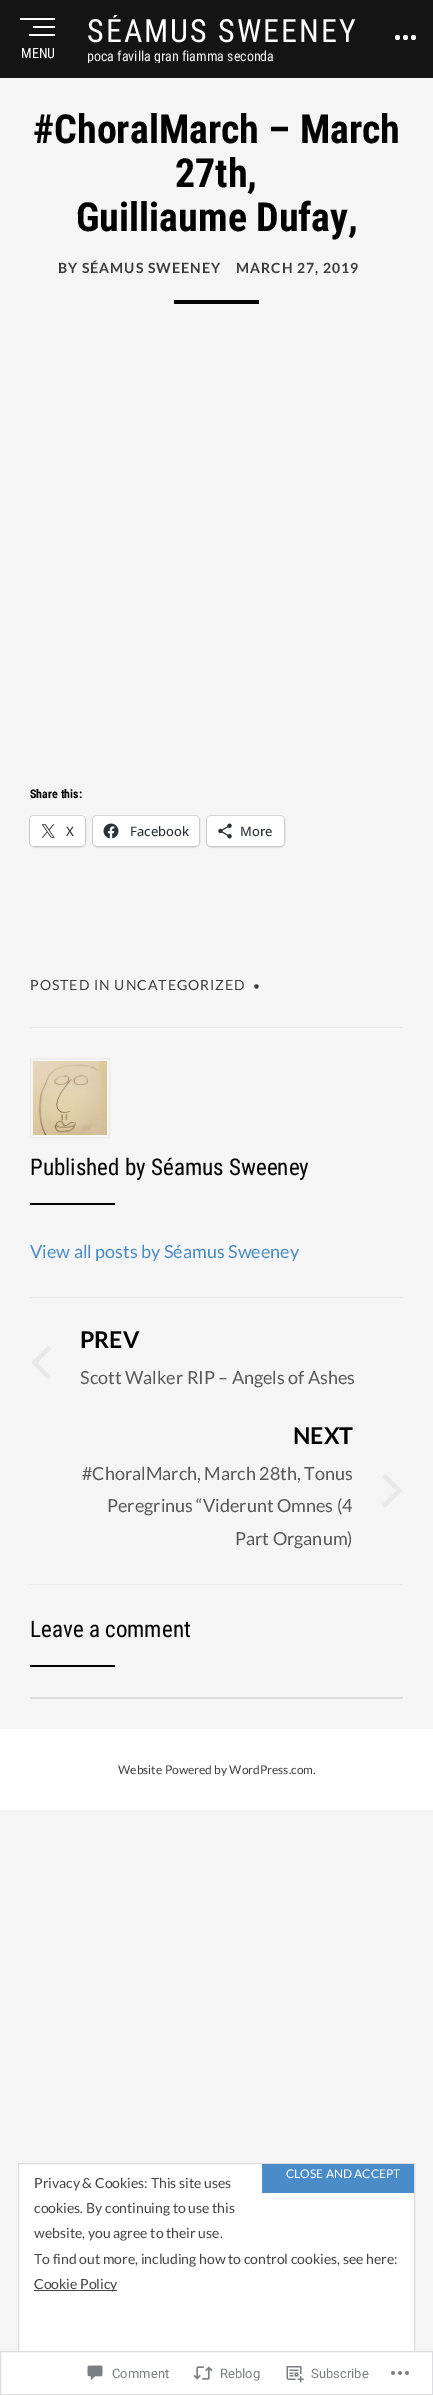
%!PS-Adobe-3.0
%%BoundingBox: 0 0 433 2395
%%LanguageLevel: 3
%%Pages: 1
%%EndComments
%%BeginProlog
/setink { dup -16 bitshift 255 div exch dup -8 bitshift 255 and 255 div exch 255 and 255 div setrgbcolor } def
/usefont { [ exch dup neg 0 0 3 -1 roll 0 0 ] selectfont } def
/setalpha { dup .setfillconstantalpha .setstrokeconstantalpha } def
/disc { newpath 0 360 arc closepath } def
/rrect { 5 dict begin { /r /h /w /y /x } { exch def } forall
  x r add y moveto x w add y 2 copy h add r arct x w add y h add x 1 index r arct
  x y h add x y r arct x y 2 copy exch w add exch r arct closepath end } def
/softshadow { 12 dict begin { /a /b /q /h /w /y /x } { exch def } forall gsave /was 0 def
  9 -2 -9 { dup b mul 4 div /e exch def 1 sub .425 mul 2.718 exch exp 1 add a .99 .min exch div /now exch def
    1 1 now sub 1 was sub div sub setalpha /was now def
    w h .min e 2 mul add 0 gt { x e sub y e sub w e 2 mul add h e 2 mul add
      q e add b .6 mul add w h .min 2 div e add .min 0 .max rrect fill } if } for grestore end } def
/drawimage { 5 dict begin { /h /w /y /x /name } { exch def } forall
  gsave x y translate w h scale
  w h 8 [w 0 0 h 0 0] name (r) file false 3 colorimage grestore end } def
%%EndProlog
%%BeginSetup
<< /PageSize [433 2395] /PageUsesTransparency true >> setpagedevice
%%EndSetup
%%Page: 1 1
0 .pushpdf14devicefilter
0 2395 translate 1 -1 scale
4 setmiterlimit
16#F5F5F5 setink
0 0 433 2395 rectfill
16#141414 setink
0 0 433 78 rectfill
gsave
87 15 299 48 rectclip
/RobotoCondensed-Regular 32 usefont
16#FFFFFF setink
87 42 moveto 2 0 (SÉAMUS SWEENEY) ashow
/RobotoCondensed-Regular 14 usefont
16#F5F5F5 setink
87 61 moveto (poca favilla gran fiamma seconda) show
grestore
16#FFFFFF setink
413.5 37.5 2.5 disc fill
397.5 37.5 2.5 disc fill
405.5 37.5 2.5 disc fill
[
    [20 18 35 2 16#FFFFFF]
    [33 26 22 2 16#FFFFFF]
    [29 34 26 2 16#FFFFFF]
] { aload pop setink rectfill } forall
/RobotoCondensed-Regular 14 usefont
21 58 moveto (MENU) show
/RobotoCondensed-Bold 40 usefont
16#020202 setink
[
    [(#ChoralMarch – March) 33 143]
    [(27th,) 175 187]
    [(Guilliaume Dufay,) 76 231]
] { aload pop moveto show } forall
/Lato-Bold 14 usefont
16#3D3D3D setink
58 273 moveto 1 0 (BY SÉAMUS SWEENEY) ashow
236 273 moveto 1 0 (MARCH 27, 2019) ashow
16#020202 setink
174 300 85 4 rectfill
/RobotoCondensed-Bold 12 usefont
30 798 moveto (Share this:) show
16#D8D8D8 setink
29.5 815.5 56 31 4.5 rrect stroke
16#000000 setink
30 817 55 30 4 1 0.12 softshadow
16#FFFFFF setink
30 816 55 30 4 rrect fill
(img1.raw) 41 824 14 14 drawimage
/OpenSans-Medium 13 usefont
16#2C3338 setink
66 836 moveto (X) show
16#D8D8D8 setink
92.5 815.5 107 31 4.5 rrect stroke
16#000000 setink
93 817 106 30 4 1 0.12 softshadow
16#FFFFFF setink
93 816 106 30 4 rrect fill
(img2.raw) 103 823 16 16 drawimage
16#2C3338 setink
130 836 moveto (Facebook) show
16#D8D8D8 setink
206.5 815.5 78 31 4.5 rrect stroke
16#000000 setink
207 817 77 30 4 1 0.12 softshadow
16#FFFFFF setink
207 816 77 30 4 rrect fill
(img3.raw) 218 823 14 16 drawimage
16#2C3338 setink
240 836 moveto (More) show
/Lato-Regular 14 usefont
16#3D3D3D setink
30 990 moveto 1 0 (POSTED IN UNCATEGORIZED) ashow
/Lato-Regular 12 usefont
253 990 moveto 1 0 (•) ashow
16#E8E8E8 setink
30 1027 373 1 rectfill
16#EBEBEB setink
30.5 1058.5 79 79 rectstroke
(img4.raw) 33 1061 74 74 drawimage
/RobotoCondensed-Regular 23 usefont
16#020202 setink
30 1175 moveto (Published by Séamus Sweeney) show
30 1203 85 2 rectfill
/Lato-Regular 18 usefont
16#4A8CC7 setink
30 1258 moveto (View all posts by Séamus Sweeney) show
16#E8E8E8 setink
30 1297 373 1 rectfill
/Lato-Bold 23 usefont
16#020202 setink
80 1348 moveto (PREV) show
(img5.raw) 31 1346 20 34 drawimage
/Lato-Regular 18 usefont
16#595959 setink
80 1384 moveto (Scott Walker RIP – Angels of Ashes) show
/Lato-Bold 23 usefont
16#020202 setink
293 1444 moveto (NEXT) show
/Lato-Regular 18 usefont
16#595959 setink
82 1480 moveto (#ChoralMarch, March 28th, Tonus) show
(img6.raw) 382 1474 20 34 drawimage
107 1512 moveto (Peregrinus “Viderunt Omnes \(4) show
235 1545 moveto (Part Organum\)) show
16#E8E8E8 setink
30 1584 373 1 rectfill
/RobotoCondensed-Regular 23 usefont
16#020202 setink
30 1637 moveto (Leave a comment) show
[
    [30 1665 85 2 16#020202]
    [30 1697 373 2 16#DCDCDE]
    [0 1729 433 81 16#FFFFFF]
] { aload pop setink rectfill } forall
/Lato-Regular 12 usefont
16#3D3D3D setink
118 1774 moveto (Website Powered by WordPress.com.) show
16#FFFFFF setink
18.5 2163.5 moveto 414.5 2163.5 lineto 414.5 2376.5 lineto 18.5 2376.5 lineto closepath gsave fill grestore
16#DDDDDD setink
stroke
16#4A8CC7 setink
262 2164 152 29 rectfill
16#FFFFFF setink
286 2178 moveto (CLOSE AND ACCEPT) show
/Lato-Regular 14 usefont
16#444444 setink
[
    [(Privacy & Cookies: This site uses) 34 2188]
    [(cookies. By continuing to use this) 34 2213]
    [(website, you agree to their use.) 34 2238]
    [(To find out more, including how to control cookies, see here:) 34 2264]
] { aload pop moveto show } forall
34 2290 83 1 rectfill
34 2289 moveto (Cookie Policy) show
0.98 setalpha
16#FFFFFF setink
0.5 2351.5 moveto 432.5 2351.5 lineto 432.5 2394.5 lineto 0.5 2394.5 lineto closepath fill
1 setalpha
16#DDDDDF setink
0.5 2351.5 moveto 432.5 2351.5 lineto 432.5 2394.5 lineto 0.5 2394.5 lineto closepath stroke
(img7.raw) 87 2365 16 16 drawimage
/Roboto-Regular 13 usefont
16#7B7F84 setink
112 2378 moveto (Comment) show
(img8.raw) 193 2366 20 14 drawimage
220 2378 moveto (Reblog) show
(img9.raw) 286 2366 18 17 drawimage
311 2378 moveto (Subscribe) show
(img10.raw) 391 2371 18 4 drawimage
.poppdf14devicefilter showpage
%%EOF
